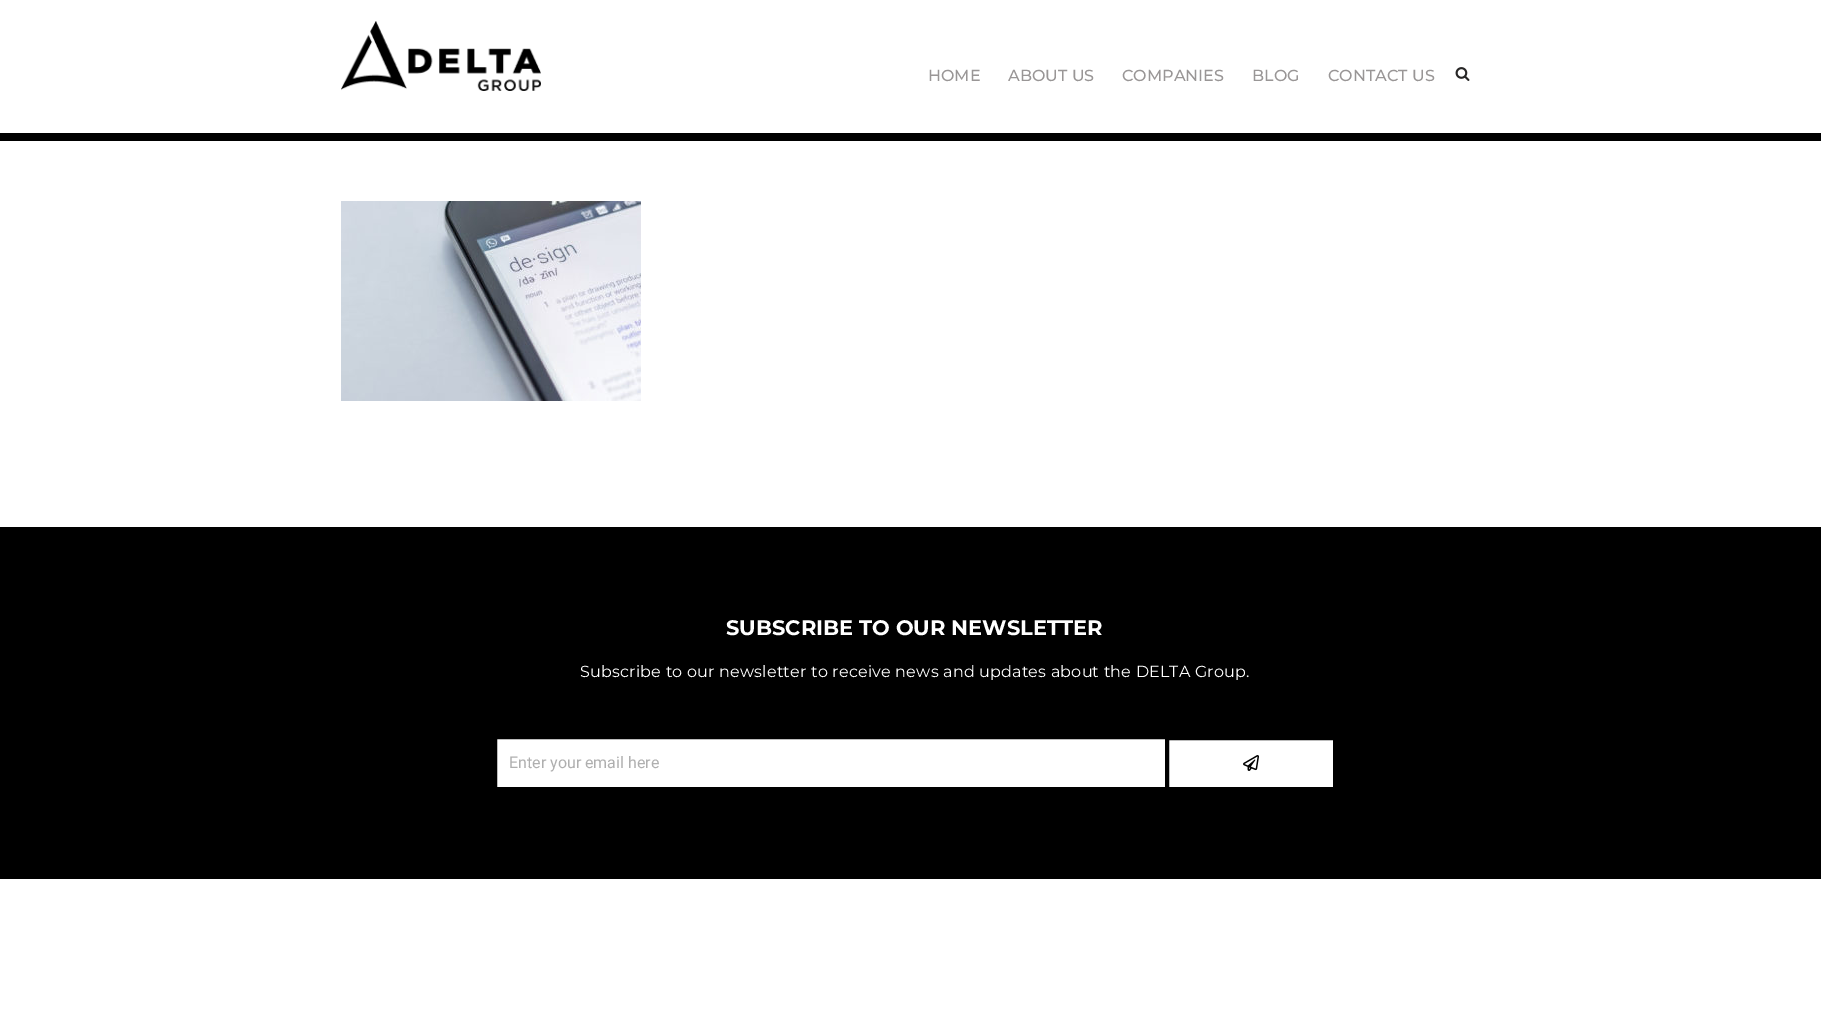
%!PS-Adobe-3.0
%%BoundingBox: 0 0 1821 1030
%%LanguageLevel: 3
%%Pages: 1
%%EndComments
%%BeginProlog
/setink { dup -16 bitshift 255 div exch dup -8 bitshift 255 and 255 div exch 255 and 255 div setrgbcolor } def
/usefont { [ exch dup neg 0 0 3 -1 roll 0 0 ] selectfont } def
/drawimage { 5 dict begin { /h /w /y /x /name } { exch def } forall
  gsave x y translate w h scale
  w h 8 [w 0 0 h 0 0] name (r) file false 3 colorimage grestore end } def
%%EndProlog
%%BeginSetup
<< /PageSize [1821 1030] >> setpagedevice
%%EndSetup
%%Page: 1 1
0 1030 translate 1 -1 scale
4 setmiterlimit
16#FFFFFF setink
0 0 1821 1030 rectfill
16#000000 setink
0 133 1821 8 rectfill
(img1.raw) 341 21 200 70 drawimage
/Montserrat-Medium 16 usefont
16#999696 setink
[
    [(HOME) 928 81]
    [(ABOUT US) 1008 81]
    [(COMPANIES) 1122 81]
    [(BLOG) 1252 81]
    [(CONTACT US) 1328 81]
] { aload pop moveto show } forall
(img2.raw) 1455 67 15 14 drawimage
(img3.raw) 341 201 300 200 drawimage
16#000000 setink
0 527 1821 352 rectfill
/Montserrat-Bold 21 usefont
16#FFFFFF setink
726 635 moveto (SUBSCRIBE TO OUR NEWSLETTER) show
/Montserrat-Regular 16 usefont
580 677 moveto 0.2 0 (Subscribe to our newsletter to receive news and updates about the DELTA Group.) ashow
496 738 moveto 1166 738 lineto 1166 788 lineto 496 788 lineto closepath gsave fill grestore
16#000000 setink
2 setlinewidth
stroke
/Roboto-Regular 16 usefont
16#AFAFAF setink
509 768 moveto (Enter your email here) show
16#FFFFFF setink
1168 739 moveto 1334 739 lineto 1334 788 lineto 1168 788 lineto closepath gsave fill grestore
16#000000 setink
stroke
(img4.raw) 1243 755 16 16 drawimage
showpage
%%EOF
